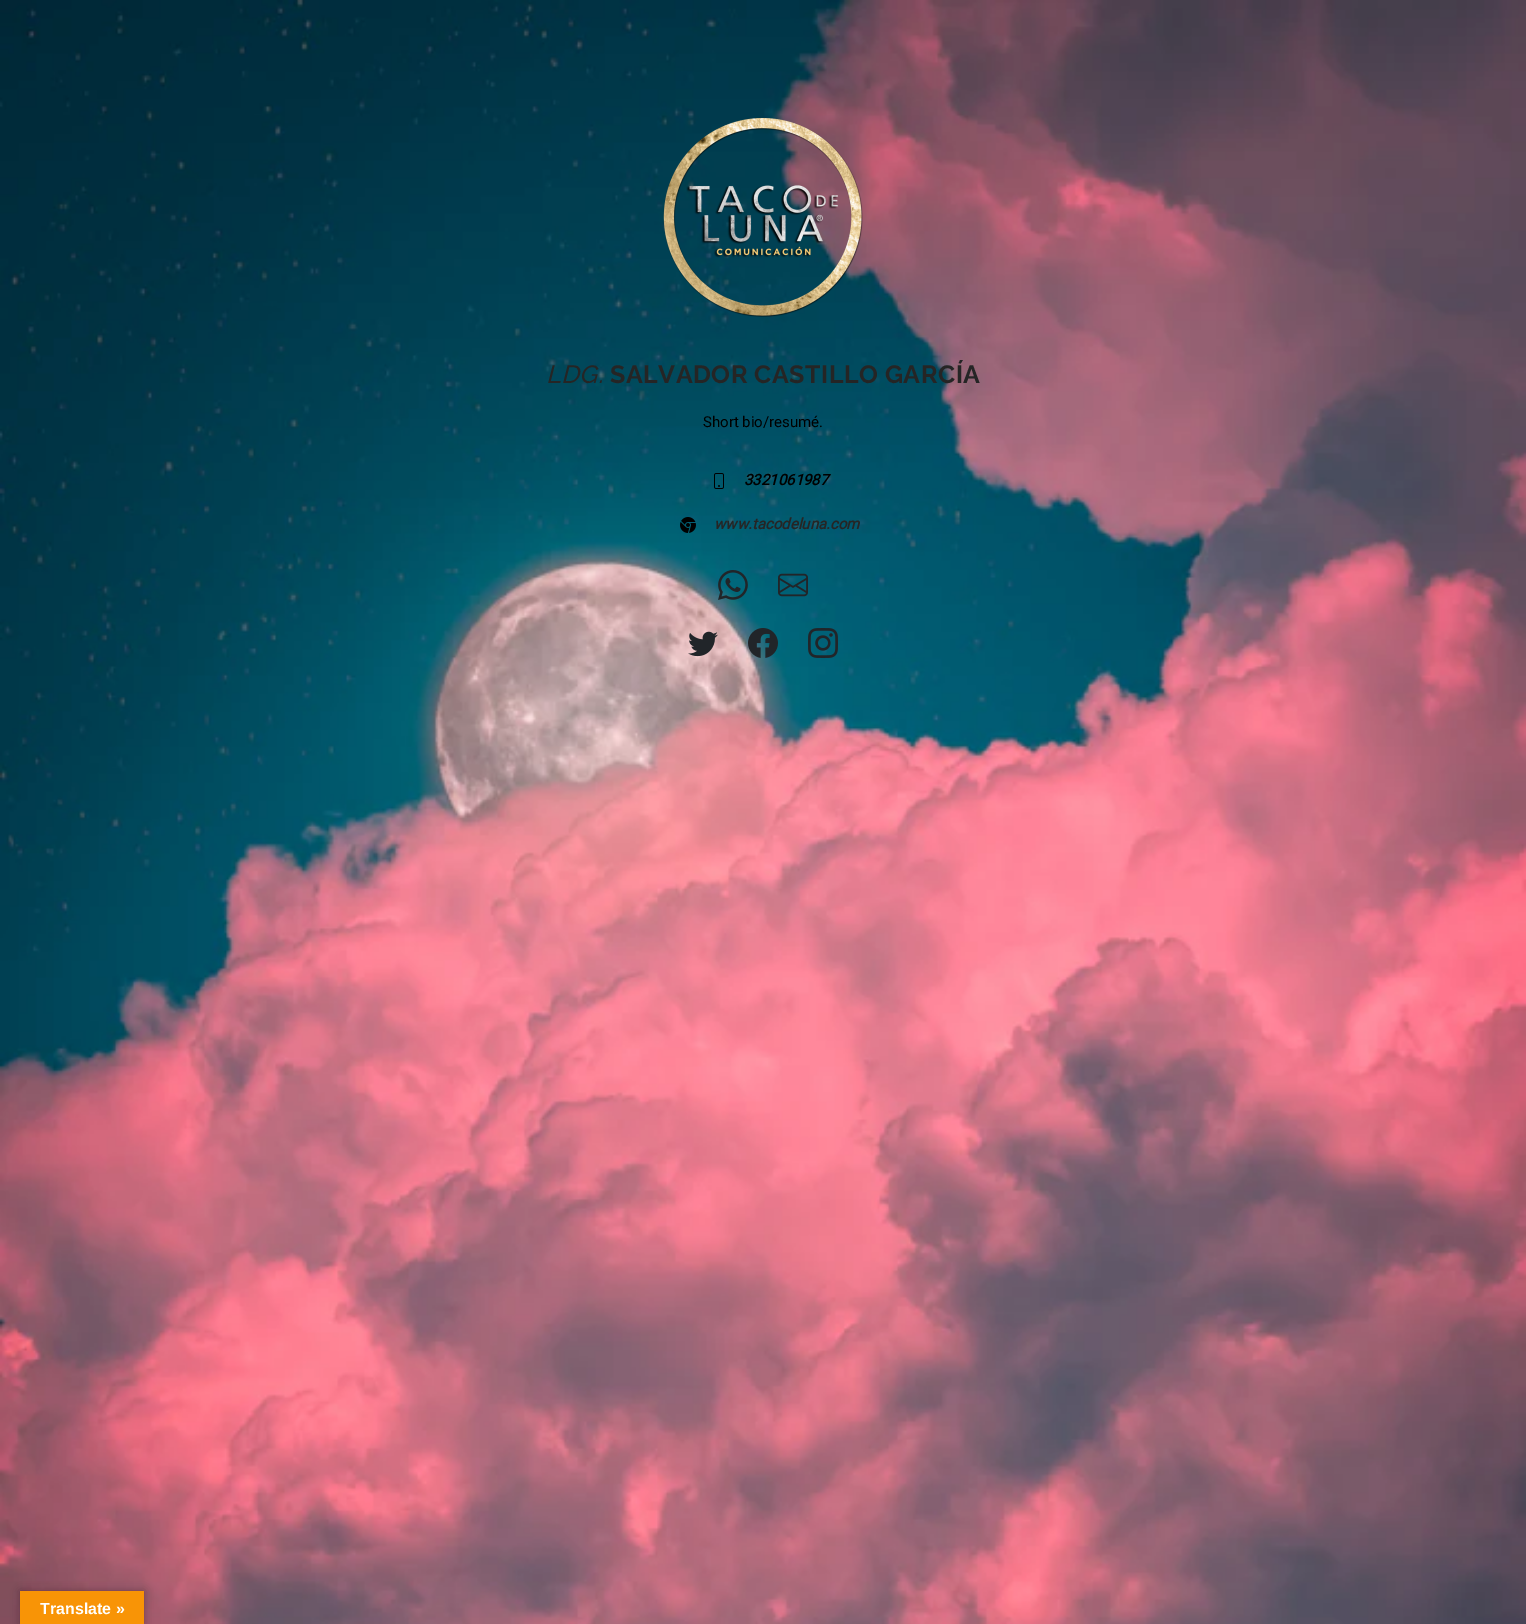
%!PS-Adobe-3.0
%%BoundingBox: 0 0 1526 1624
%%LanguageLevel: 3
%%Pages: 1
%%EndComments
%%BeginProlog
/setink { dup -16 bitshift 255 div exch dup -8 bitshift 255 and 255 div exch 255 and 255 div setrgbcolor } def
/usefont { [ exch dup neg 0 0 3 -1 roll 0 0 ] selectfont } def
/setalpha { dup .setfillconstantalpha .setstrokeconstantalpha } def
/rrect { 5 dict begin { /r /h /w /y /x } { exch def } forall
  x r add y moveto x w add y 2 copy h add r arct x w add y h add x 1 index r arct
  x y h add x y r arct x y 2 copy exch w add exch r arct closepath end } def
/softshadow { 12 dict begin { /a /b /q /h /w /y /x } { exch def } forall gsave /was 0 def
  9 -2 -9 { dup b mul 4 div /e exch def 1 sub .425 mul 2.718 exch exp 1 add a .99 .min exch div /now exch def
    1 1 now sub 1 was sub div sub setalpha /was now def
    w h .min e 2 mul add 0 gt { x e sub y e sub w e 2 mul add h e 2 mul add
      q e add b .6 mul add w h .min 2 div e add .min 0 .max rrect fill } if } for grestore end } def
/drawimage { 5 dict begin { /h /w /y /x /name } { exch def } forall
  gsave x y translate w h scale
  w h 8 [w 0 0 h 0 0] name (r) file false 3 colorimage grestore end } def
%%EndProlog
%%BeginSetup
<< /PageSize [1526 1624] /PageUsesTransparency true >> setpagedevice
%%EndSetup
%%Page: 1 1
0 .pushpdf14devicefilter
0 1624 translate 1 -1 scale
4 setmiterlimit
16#FFFFFF setink
0 0 1526 1624 rectfill
(img1.raw) 0 0 1526 1624 drawimage
(img2.raw) 663 117 200 200 drawimage
/Raleway-MediumItalic 25 usefont
16#252525 setink
546 383 moveto 0.5 0 (LDG.) ashow
/Raleway-Bold 25 usefont
610 383 moveto 0.5 0 (SALVADOR CASTILLO GARCÍA) ashow
/Roboto-Regular 15 usefont
16#000000 setink
703 427 moveto (Short bio/resumé.) show
(img3.raw) 714 473 10 16 drawimage
/Roboto-BoldItalic 15 usefont
744 485 moveto (3321061987) show
(img4.raw) 680 517 16 16 drawimage
16#252525 setink
714 529 moveto (www.tacodeluna.com) show
(img5.raw) 718 570 30 30 drawimage
(img6.raw) 778 573 30 24 drawimage
(img7.raw) 688 631 30 26 drawimage
(img8.raw) 748 628 30 30 drawimage
(img9.raw) 808 628 30 30 drawimage
16#000000 setink
20 1591 124 33 0 4.5 0.3 softshadow
16#F89406 setink
20 1591 124 33 rectfill
/LiberationSans-Bold 16 usefont
16#FFFFFF setink
40 1614 moveto (Translate ») show
.poppdf14devicefilter showpage
%%EOF
